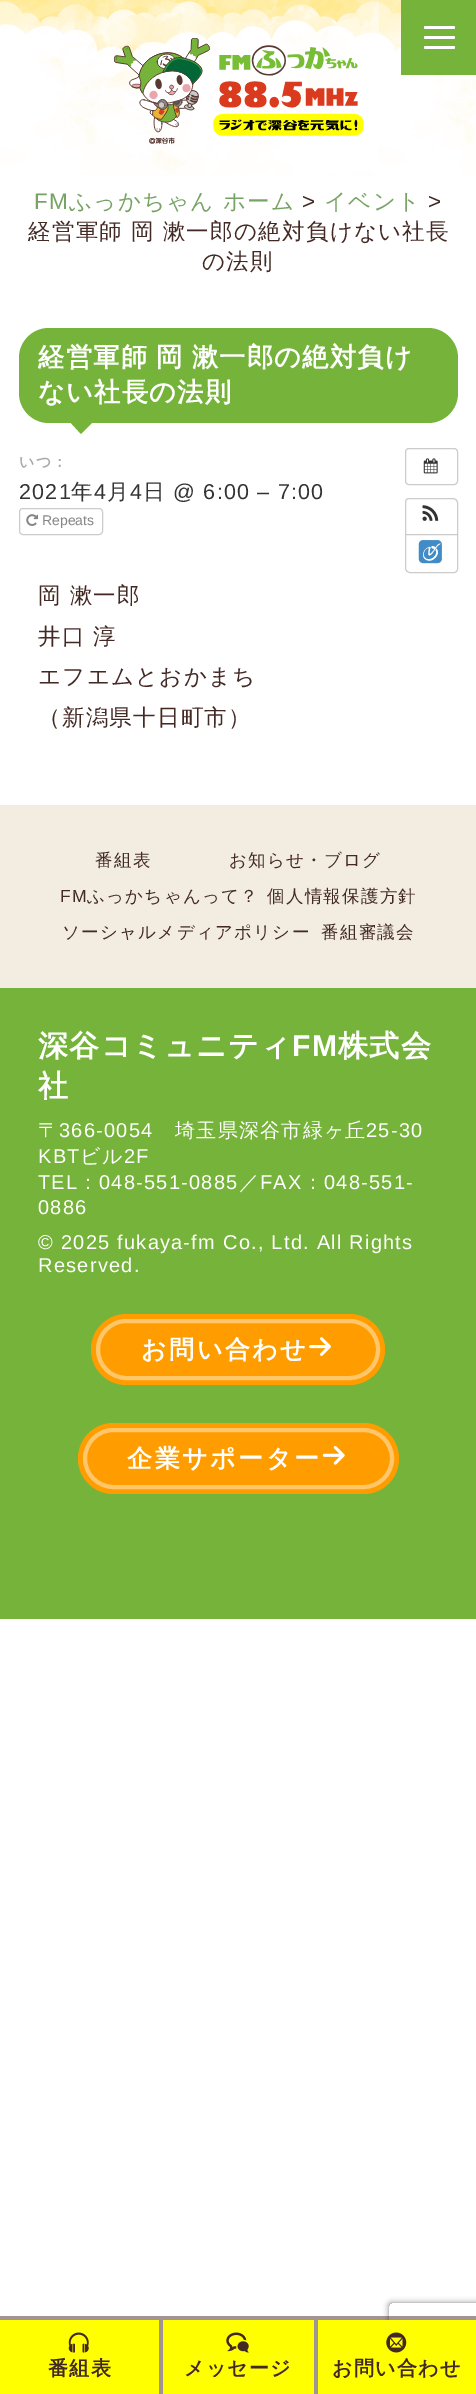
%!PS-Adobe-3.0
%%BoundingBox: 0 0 476 2394
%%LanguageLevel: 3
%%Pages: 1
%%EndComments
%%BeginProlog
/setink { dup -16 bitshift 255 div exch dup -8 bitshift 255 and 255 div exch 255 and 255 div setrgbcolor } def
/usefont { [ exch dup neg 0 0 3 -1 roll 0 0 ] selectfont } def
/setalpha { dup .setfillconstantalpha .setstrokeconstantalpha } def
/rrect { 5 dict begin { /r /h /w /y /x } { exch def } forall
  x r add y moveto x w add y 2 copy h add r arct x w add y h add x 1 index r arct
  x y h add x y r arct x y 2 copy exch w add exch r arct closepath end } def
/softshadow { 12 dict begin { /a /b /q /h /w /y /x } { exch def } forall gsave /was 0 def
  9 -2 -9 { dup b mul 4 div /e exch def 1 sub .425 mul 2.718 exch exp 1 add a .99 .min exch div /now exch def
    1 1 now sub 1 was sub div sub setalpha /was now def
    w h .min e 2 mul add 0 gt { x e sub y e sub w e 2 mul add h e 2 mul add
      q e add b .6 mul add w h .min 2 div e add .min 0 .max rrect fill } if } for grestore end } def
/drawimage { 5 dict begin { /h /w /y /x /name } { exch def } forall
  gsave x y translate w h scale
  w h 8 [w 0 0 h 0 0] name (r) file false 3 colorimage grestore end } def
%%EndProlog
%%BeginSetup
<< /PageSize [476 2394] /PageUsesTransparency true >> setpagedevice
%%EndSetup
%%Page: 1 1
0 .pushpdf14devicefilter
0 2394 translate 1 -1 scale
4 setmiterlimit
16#FFFFFF setink
0 0 476 2394 rectfill
(img1.raw) 0 0 476 177 drawimage
(img2.raw) 114 38 250 106 drawimage
16#75B33A setink
401 0 75 75 rectfill
16#FFFFFF setink
424 36 31 3 1.5 rrect fill
424 26 31 3 1.5 rrect fill
424 46 31 3 1.5 rrect fill
/LiberationSans-Regular 22.5 usefont
16#77A464 setink
34 209 moveto 1.25 0 (FM) ashow
/WenQuanYiZenHei-Medium 22.5 usefont
69 209 moveto 1.25 0 (ふっかちゃん ホーム) ashow
/LiberationSans-Regular 22.5 usefont
16#432924 setink
302 209 moveto 1.25 0 (>) ashow
/WenQuanYiZenHei-Medium 22.5 usefont
16#77A464 setink
324 209 moveto 1.25 0 (イベント) ashow
/LiberationSans-Regular 22.5 usefont
16#432924 setink
428 209 moveto 1.25 0 (>) ashow
/WenQuanYiZenHei-Medium 22.5 usefont
28 239 moveto 1.25 0 (経営軍師 岡 漱一郎の絶対負けない社長) ashow
202 269 moveto 1.25 0 (の法則) ashow
16#75B33A setink
19 328 439 95 30 rrect fill
/WenQuanYiZenHei-Bold 26.25 usefont
16#FFFFFF setink
38 366 moveto -1 0 32 1.25 0 (経営軍師 岡 漱一郎の絶対負け) awidthshow
38 401 moveto 1.25 0 (ない社長の法則) ashow
16#75B33A setink
69 421 moveto 94 421 lineto 81 434 lineto closepath fill
/WenQuanYiZenHei-Bold 15 usefont
16#AAAAAA setink
19 467 moveto 1.25 0 (いつ：) ashow
/LiberationSans-Regular 21.5 usefont
16#333333 setink
19 499 moveto 1.25 0 (2021) ashow
/WenQuanYiZenHei-Medium 21.5 usefont
71 499 moveto 1.25 0 (年) ashow
/LiberationSans-Regular 21.5 usefont
94 499 moveto 1.25 0 (4) ashow
/WenQuanYiZenHei-Medium 21.5 usefont
107 499 moveto 1.25 0 (月) ashow
/LiberationSans-Regular 21.5 usefont
130 499 moveto 1.25 0 (4) ashow
/WenQuanYiZenHei-Medium 21.5 usefont
143 499 moveto 1.25 0 (日) ashow
/LiberationSans-Regular 21.5 usefont
173 499 moveto 1.25 0 (@ 6:00 – 7:00) ashow
16#CCCCCC setink
19.5 508.5 83 26 3.5 rrect stroke
(img3.raw) 26 514 13 12 drawimage
/LiberationSans-Regular 14 usefont
16#858585 setink
42 525 moveto (Repeats) show
16#CCCCCC setink
405.5 448.5 52 36 3.5 rrect stroke
(img4.raw) 423 458 15 16 drawimage
409 498.5 moveto 453 498.5 lineto 455.5 498.5 457.5 500.5 457.5 503 curveto 457.5 534.5 lineto 405.5 534.5 lineto 405.5 502 lineto 405.5 500 407 498.5 409 498.5 curveto closepath stroke
(img5.raw) 422 505 17 16 drawimage
16#FFFFFF setink
405.5 534.5 moveto 457.5 534.5 lineto 457.5 569 lineto 457.5 571 456 572.5 454 572.5 curveto 410 572.5 lineto 407.5 572.5 405.5 570.5 405.5 568 curveto closepath gsave fill grestore
16#CCCCCC setink
stroke
(img6.raw) 418 540 24 24 drawimage
/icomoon-Regular 18 usefont
16#FFFFFF setink
423 560 moveto 1.25 0 (!) ashow
/WenQuanYiZenHei-Medium 22.5 usefont
16#432924 setink
38 603 moveto 1.25 0 (岡 漱一郎) ashow
38 644 moveto 1.25 0 (井口 淳) ashow
38 684 moveto 1.25 0 (エフエムとおかまち) ashow
38 725 moveto 1.25 0 (（新潟県十日町市）) ashow
16#F3EDE1 setink
0 805 476 183 rectfill
/WenQuanYiZenHei-Medium 17.5 usefont
16#432924 setink
95 866 moveto 1.25 0 (番組表) ashow
229 866 moveto 1.25 0 (お知らせ・ブログ) ashow
/LiberationSans-Regular 17.5 usefont
60 902 moveto 1.25 0 (FM) ashow
/WenQuanYiZenHei-Medium 17.5 usefont
87 902 moveto 1.25 0 (ふっかちゃんって？) ashow
267 902 moveto 1.25 0 (個人情報保護方針) ashow
62 938 moveto 1.25 0 (ソーシャルメディアポリシー) ashow
321 938 moveto 1.25 0 (番組審議会) ashow
16#76B33A setink
0 988 476 631 rectfill
/WenQuanYiZenHei-Bold 30 usefont
16#FFFFFF setink
38 1056 moveto 1.25 0 (深谷コミュニティ) ashow
/LiberationSans-Bold 30 usefont
292 1056 moveto 1.25 0 (FM) ashow
/WenQuanYiZenHei-Bold 30 usefont
338 1056 moveto 1.25 0 (株式会) ashow
38 1096 moveto 1.25 0 (社) ashow
/WenQuanYiZenHei-Medium 20 usefont
38 1137 moveto 1.25 0 (〒) ashow
/LiberationSans-Regular 20 usefont
59 1137 moveto 1.25 0 (366-0054) ashow
/WenQuanYiZenHei-Medium 20 usefont
175 1137 moveto 1.25 0 (埼玉県深谷市緑ヶ丘) ashow
/LiberationSans-Regular 20 usefont
366 1137 moveto 1.25 0 (25-30) ashow
38 1163 moveto 1.25 0 (KBT) ashow
/WenQuanYiZenHei-Medium 20 usefont
80 1163 moveto 1.25 0 (ビル) ashow
/LiberationSans-Regular 20 usefont
124 1163 moveto 1.25 0 (2F) ashow
38 1189 moveto 1.25 0 (TEL) ashow
/WenQuanYiZenHei-Medium 20 usefont
78 1189 moveto 1.25 0 (：) ashow
/LiberationSans-Regular 20 usefont
99 1189 moveto 1.25 0 (048-551-0885) ashow
/WenQuanYiZenHei-Medium 20 usefont
239 1189 moveto 1.25 0 (／) ashow
/LiberationSans-Regular 20 usefont
260 1189 moveto 1.25 0 (FAX) ashow
/WenQuanYiZenHei-Medium 20 usefont
303 1189 moveto 1.25 0 (：) ashow
/LiberationSans-Regular 20 usefont
324 1189 moveto 1.25 0 (048-551-) ashow
38 1214 moveto 1.25 0 (0886) ashow
38 1249 moveto 1.25 0 (© 2025 fukaya-fm Co., Ltd. All Rights) ashow
38 1272 moveto 1.25 0 (Reserved.) ashow
16#FF9D00 setink
91 1314 294 71 35.5 rrect fill
(img7.raw) 309 1337 22 19 drawimage
16#FFC66A setink
4 setlinewidth
98 1321 280 57 28.5 rrect stroke
/WenQuanYiZenHei-Bold 25 usefont
16#FFFFFF setink
141 1358 moveto 2.5 0 (お問い合わせ) ashow
16#FF9D00 setink
78 1423 321 71 35.5 rrect fill
(img8.raw) 322 1446 23 19 drawimage
16#FFC66A setink
85 1430 307 57 28.5 rrect stroke
16#FFFFFF setink
127 1467 moveto 2.5 0 (企業サポーター) ashow
gsave
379 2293 moveto 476 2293 lineto 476 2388 lineto 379 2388 lineto closepath 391.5 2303 moveto 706.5 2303 lineto 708 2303 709 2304 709 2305.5 curveto 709 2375.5 lineto 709 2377 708 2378 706.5 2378 curveto 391.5 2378 lineto 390 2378 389 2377 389 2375.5 curveto 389 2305.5 lineto 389 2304 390 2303 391.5 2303 curveto closepath eoclip newpath
16#808080 setink
389 2303 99 75 2.5 3 1 softshadow
grestore
0.5 setalpha
16#442A25 setink
0 2316 476 4 rectfill
1 setalpha
16#FFFF00 setink
0 2320 159 74 rectfill
(img9.raw) 68 2332 21 21 drawimage
/WenQuanYiZenHei-Bold 20 usefont
16#432924 setink
48 2375 moveto 1.25 0 (番組表) ashow
[
    [163 2320 151 74 16#FFFF00]
    [314 2320 4 74 16#A19492]
    [159 2320 4 74 16#A19492]
] { aload pop setink rectfill } forall
(img10.raw) 226 2332 23 21 drawimage
16#432924 setink
184 2375 moveto 1.25 0 (メッセージ) ashow
16#FFFF00 setink
318 2320 158 74 rectfill
(img11.raw) 386 2332 21 21 drawimage
16#432924 setink
332 2375 moveto 1.25 0 (お問い合わせ) ashow
.poppdf14devicefilter showpage
%%EOF
